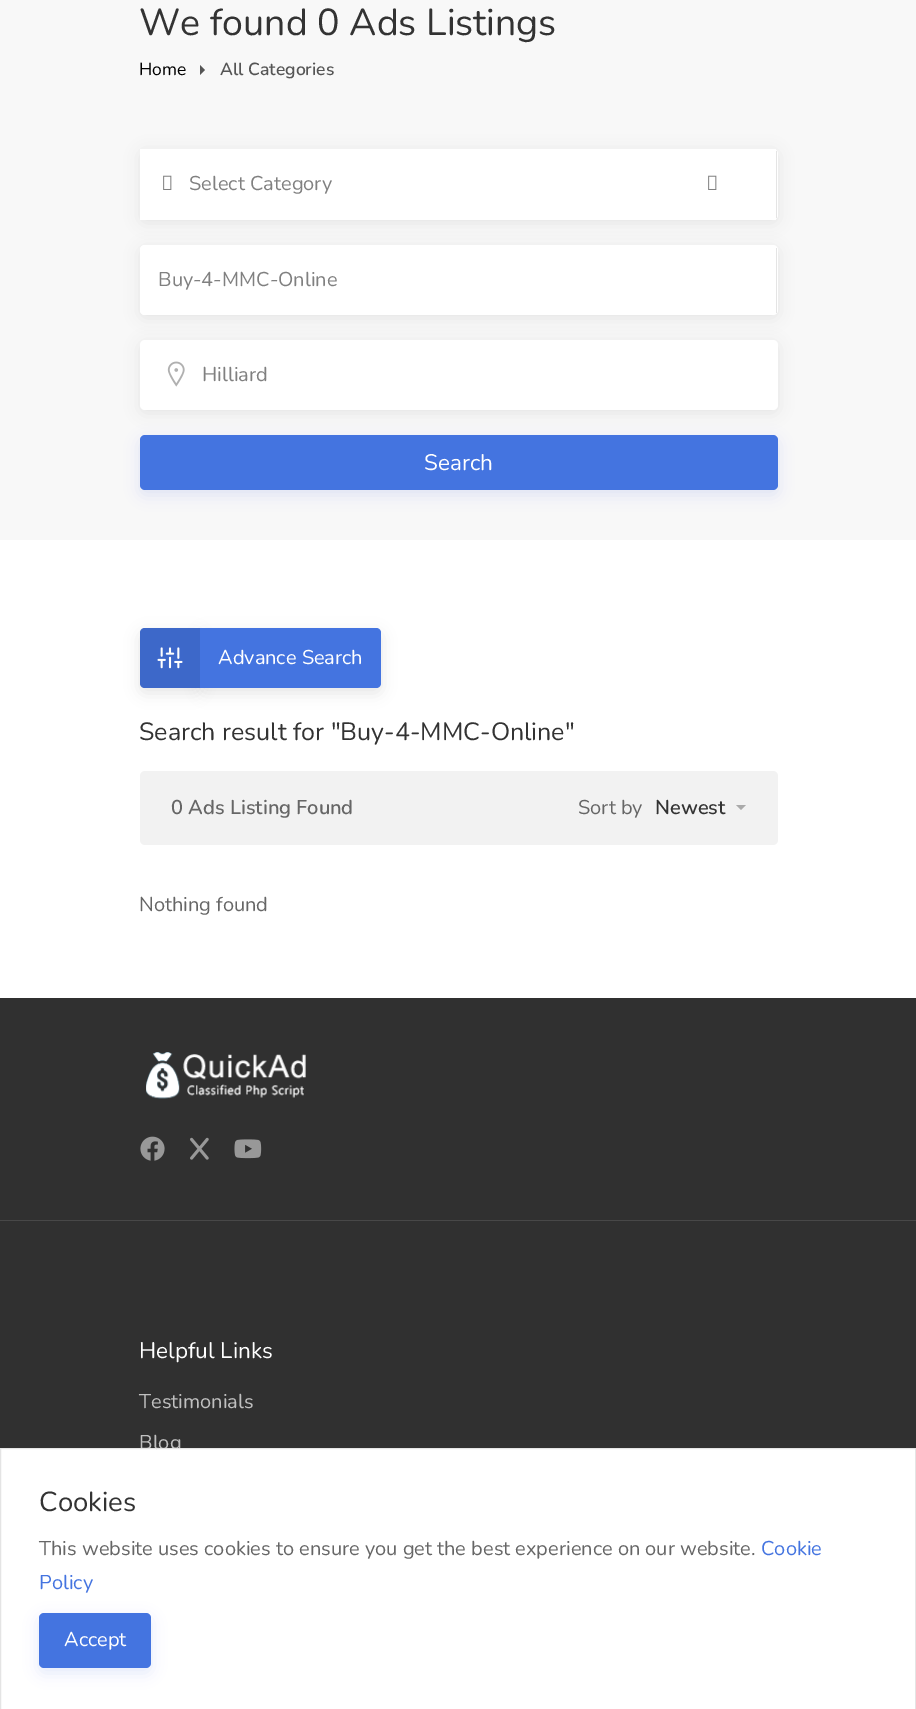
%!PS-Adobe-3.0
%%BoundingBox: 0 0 916 1709
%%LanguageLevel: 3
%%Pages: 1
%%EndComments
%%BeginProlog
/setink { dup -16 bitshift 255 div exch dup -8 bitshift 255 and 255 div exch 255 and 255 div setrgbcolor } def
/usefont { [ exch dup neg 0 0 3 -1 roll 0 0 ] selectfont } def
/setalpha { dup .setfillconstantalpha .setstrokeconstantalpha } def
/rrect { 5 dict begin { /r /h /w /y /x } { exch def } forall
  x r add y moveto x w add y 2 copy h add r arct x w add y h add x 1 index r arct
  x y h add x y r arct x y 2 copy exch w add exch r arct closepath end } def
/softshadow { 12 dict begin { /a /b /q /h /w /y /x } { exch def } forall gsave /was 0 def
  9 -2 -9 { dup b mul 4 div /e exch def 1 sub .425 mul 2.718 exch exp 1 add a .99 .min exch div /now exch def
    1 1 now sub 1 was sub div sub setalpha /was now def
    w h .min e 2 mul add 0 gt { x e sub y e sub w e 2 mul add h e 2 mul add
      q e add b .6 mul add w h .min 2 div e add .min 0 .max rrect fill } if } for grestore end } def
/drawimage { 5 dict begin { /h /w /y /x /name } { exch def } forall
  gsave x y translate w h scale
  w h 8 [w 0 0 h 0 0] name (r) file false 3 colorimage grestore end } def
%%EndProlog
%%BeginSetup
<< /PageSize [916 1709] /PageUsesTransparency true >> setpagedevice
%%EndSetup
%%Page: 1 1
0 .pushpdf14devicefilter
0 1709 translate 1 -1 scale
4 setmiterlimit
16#FFFFFF setink
0 0 916 1709 rectfill
16#F8F8F8 setink
0 0 916 540 rectfill
/Nunito-Regular 37.5 usefont
16#333333 setink
139 35 moveto (We found 0 Ads Listings) show
/Nunito-Regular 17.5 usefont
16#000000 setink
139 75 moveto (Home) show
16#555555 setink
200 75 moveto 200 65 lineto 205 70 lineto closepath fill
/Nunito-SemiBold 17.5 usefont
220 75 moveto (All Categories) show
16#000000 setink
140 151 638 72 5 7.5 0.07 softshadow
16#FFFFFF setink
140 149 638 71 5 rrect fill
16#E4E4E4 setink
776 151 1 67 rectfill
16#FFFFFF setink
140 149 636 71 rectfill
(img1.raw) 163 175 9 15 drawimage
/Nunito-Regular 20 usefont
16#808080 setink
189 190 moveto (Select Category) show
(img1.raw) 708 175 9 15 drawimage
16#000000 setink
140 248 638 70 5 7.5 0.07 softshadow
16#FFFFFF setink
140 245 638 70 5 rrect fill
16#E4E4E4 setink
776 248 1 65 rectfill
16#FFFFFF setink
140 245 636 70 5 rrect fill
16#808080 setink
158 286 moveto (Buy-4-MMC-Online) show
16#000000 setink
140 343 638 70 5 7.5 0.07 softshadow
16#FFFFFF setink
140 340 638 70 5 rrect fill
(img2.raw) 167 361 18 26 drawimage
16#808080 setink
202 381 moveto (Hilliard) show
16#4474E0 setink
140 440 638 55 5 7.5 0.15 softshadow
140 435 638 55 5 rrect fill
/Nunito-Regular 22.5 usefont
16#FFFFFF setink
424 470 moveto (Search) show
16#000000 setink
200 633 181 60 5 7.5 0.1 softshadow
140 633 60 60 5 7.5 0.1 softshadow
16#4474E0 setink
145 628 moveto 200 628 lineto 200 688 lineto 145 688 lineto 142 688 140 686 140 683 curveto 140 633 lineto 140 630 142 628 145 628 curveto closepath fill
0.1 setalpha
16#000000 setink
145 628 moveto 200 628 lineto 200 688 lineto 145 688 lineto 142 688 140 686 140 683 curveto 140 633 lineto 140 630 142 628 145 628 curveto closepath fill
1 setalpha
(img3.raw) 157 647 26 22 drawimage
16#4474E0 setink
200 628 moveto 376 628 lineto 379 628 381 630 381 633 curveto 381 683 lineto 381 686 379 688 376 688 curveto 200 688 lineto closepath fill
/Nunito-Regular 20 usefont
16#FFFFFF setink
218 664 moveto (Advance Search) show
/Nunito-Regular 25 usefont
16#333333 setink
139 740 moveto (Search result for "Buy-4-MMC-Online") show
16#F2F2F2 setink
140 771 638 74 5 rrect fill
/Nunito-SemiBold 20 usefont
16#666666 setink
171 814 moveto (0 Ads Listing Found) show
/Nunito-Regular 20 usefont
578 814 moveto (Sort by) show
/Nunito-SemiBold 20 usefont
16#333333 setink
655 814 moveto (Newest) show
16#AAAAAA setink
736 805 moveto 746 805 lineto 741 810 lineto closepath fill
/Nunito-Regular 20 usefont
16#666666 setink
139 911 moveto (Nothing found) show
16#303030 setink
0 998 916 450 rectfill
16#484848 setink
0 1220 916 1 rectfill
(img4.raw) 146 1052 160 47 drawimage
(img5.raw) 140 1136 25 25 drawimage
(img6.raw) 190 1137 19 23 drawimage
(img7.raw) 234 1139 28 20 drawimage
/Nunito-Regular 22.5 usefont
16#FFFFFF setink
139 1358 moveto (Helpful Links) show
/Nunito-Regular 20 usefont
16#C0C0C0 setink
139 1408 moveto (Testimonials) show
139 1449 moveto (Blog) show
16#FFFFFF setink
157 1449 23 4 rectfill
16#E4E4E4 setink
0.5 1448.5 915 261 rectstroke
/Nunito-Regular 27.5 usefont
16#333333 setink
39 1511 moveto (Cookies) show
/Nunito-Regular 20 usefont
16#666666 setink
39 1555 moveto (This website uses cookies to ensure you get the best experience on our website.) show
16#4474E0 setink
761 1555 moveto (Cookie) show
39 1589 moveto (Policy) show
39 1618 112 55 5 7.5 0.15 softshadow
39 1613 112 55 5 rrect fill
16#FFFFFF setink
64 1646 moveto (Accept) show
.poppdf14devicefilter showpage
%%EOF
